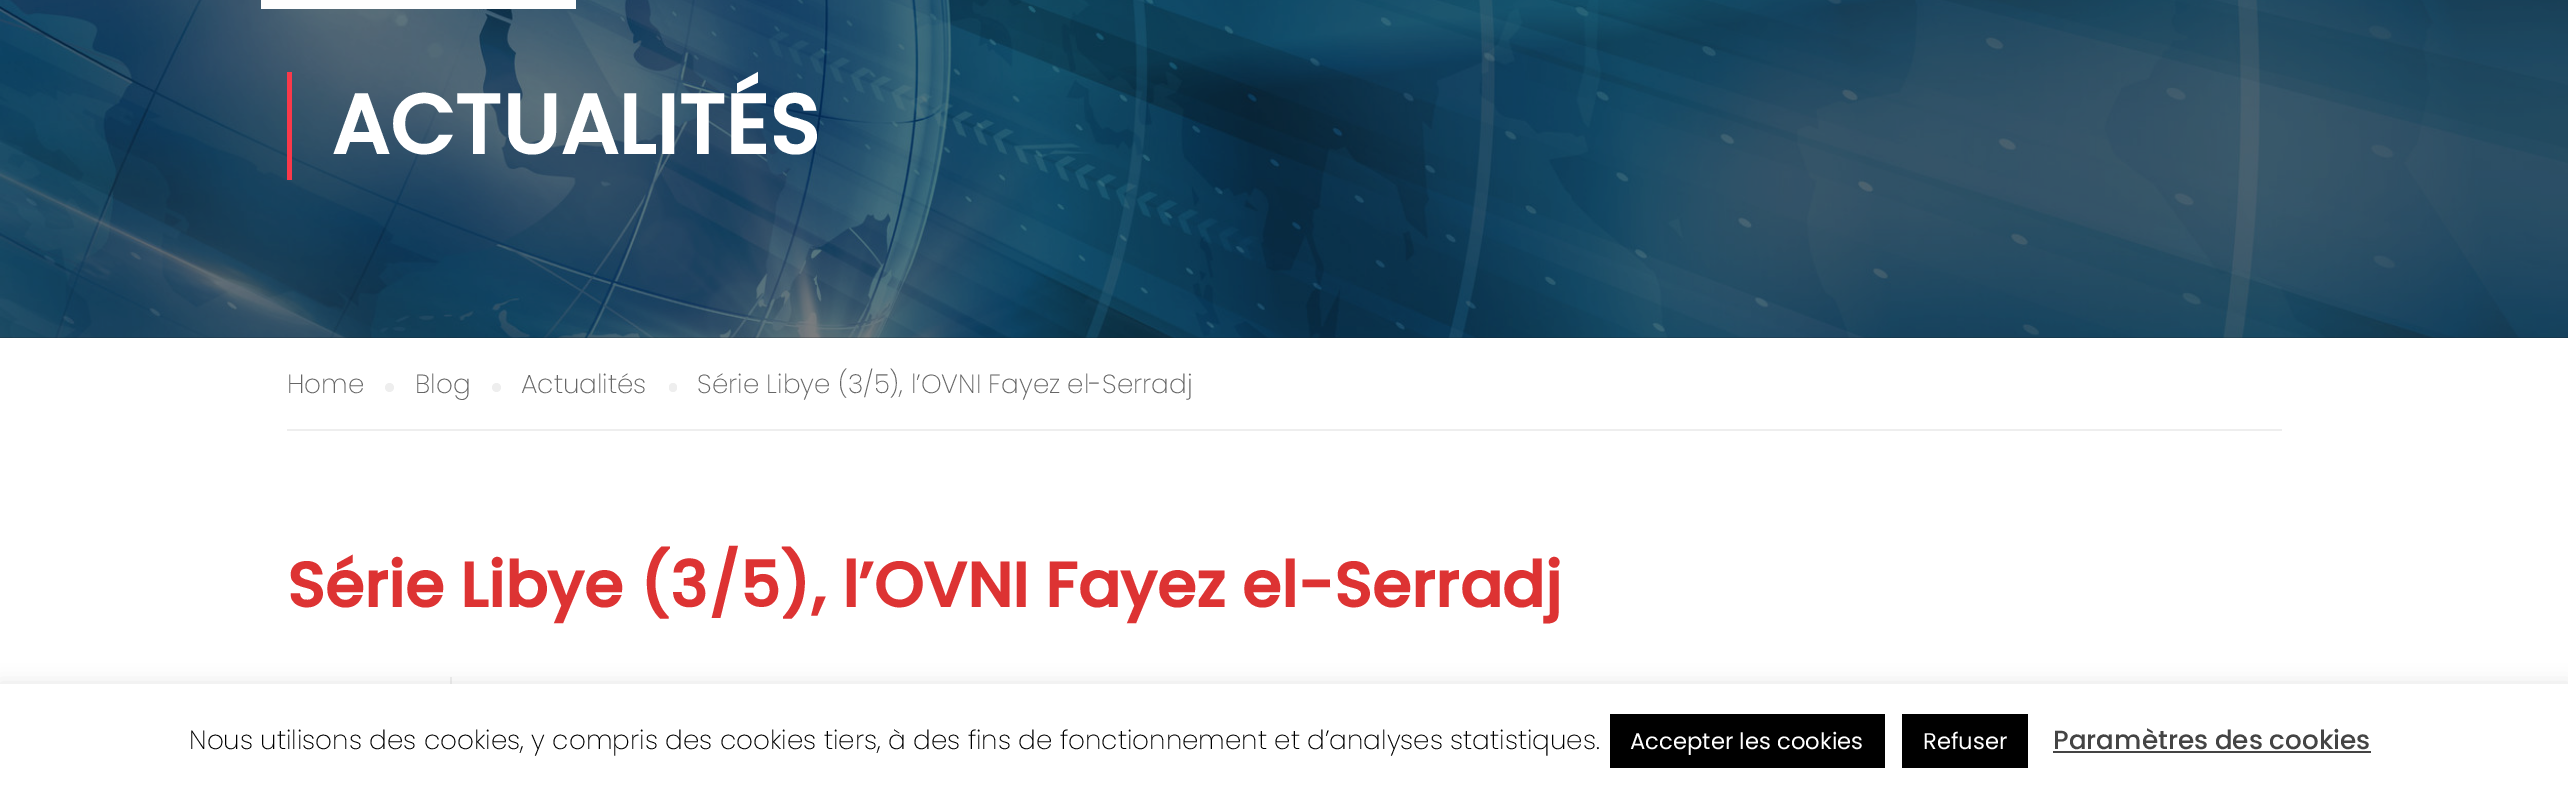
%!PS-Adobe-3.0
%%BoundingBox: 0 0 2568 798
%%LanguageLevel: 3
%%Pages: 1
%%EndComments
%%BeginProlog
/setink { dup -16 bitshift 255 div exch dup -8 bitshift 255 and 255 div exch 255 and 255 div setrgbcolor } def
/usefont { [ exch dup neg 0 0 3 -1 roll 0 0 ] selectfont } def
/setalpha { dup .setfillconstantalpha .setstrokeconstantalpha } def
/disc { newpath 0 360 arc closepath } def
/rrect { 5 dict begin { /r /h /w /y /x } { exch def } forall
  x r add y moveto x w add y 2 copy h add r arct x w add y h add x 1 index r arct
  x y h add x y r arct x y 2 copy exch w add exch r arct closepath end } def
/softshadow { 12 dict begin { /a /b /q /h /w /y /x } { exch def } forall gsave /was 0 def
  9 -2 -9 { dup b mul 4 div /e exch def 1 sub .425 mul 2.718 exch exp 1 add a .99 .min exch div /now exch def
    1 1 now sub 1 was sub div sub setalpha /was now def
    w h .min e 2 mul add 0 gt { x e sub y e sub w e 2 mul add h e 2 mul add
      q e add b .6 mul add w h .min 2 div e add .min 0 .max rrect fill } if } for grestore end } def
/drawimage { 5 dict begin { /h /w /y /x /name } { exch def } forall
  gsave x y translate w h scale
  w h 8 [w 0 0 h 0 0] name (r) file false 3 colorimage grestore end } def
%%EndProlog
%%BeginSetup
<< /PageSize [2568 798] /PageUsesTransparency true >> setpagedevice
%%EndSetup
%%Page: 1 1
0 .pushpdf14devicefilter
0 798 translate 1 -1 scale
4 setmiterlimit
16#FFFFFF setink
0 0 2568 798 rectfill
(img1.raw) 0 0 2568 338 drawimage
16#FEFEFE setink
261 0 315 9 rectfill
16#FA394A setink
287 72 5 108 rectfill
/Poppins-Bold 84 usefont
16#FFFFFF setink
331 154 moveto (ACTUALITÉS) show
16#EEEEEE setink
287 429 1995 2 rectfill
/Poppins-ExtraLight 26.25 usefont
16#666666 setink
287 393 moveto (Home) show
16#EEEEEE setink
389.5 387.5 4.5 disc fill
16#666666 setink
415 393 moveto (Blog) show
16#EEEEEE setink
496.5 387.5 4.5 disc fill
16#666666 setink
521 393 moveto (Actualités) show
16#EEEEEE setink
669 383 8 9 4 rrect fill
16#666666 setink
697 393 moveto (Série Libye \(3/5\), l’OVNI Fayez el-Serradj) show
/Poppins-Bold 63 usefont
16#DD3333 setink
287 607 moveto (Série Libye \(3/5\), l’OVNI Fayez el-Serradj) show
16#EEEEEE setink
450 677 2 7 rectfill
16#ACABAB setink
0 683 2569 113 0 9 0.3 softshadow
16#FFFFFF setink
0 684 2568 114 rectfill
/Poppins-ExtraLight 26.25 usefont
16#000000 setink
189 749 moveto (Nous utilisons des cookies, y compris des cookies tiers, à des fins de fonctionnement et d’analyses statistiques.) show
1610 714 275 54 rectfill
/Poppins-Regular 22.75 usefont
16#FFFFFF setink
1630 749 moveto (Accepter les cookies) show
16#000000 setink
1902 714 126 54 rectfill
16#FFFFFF setink
1923 749 moveto (Refuser) show
/Poppins-Medium 26.25 usefont
16#444444 setink
2053 749 moveto (Paramètres des cookies) show
2053 751 318 2 rectfill
.poppdf14devicefilter showpage
%%EOF
